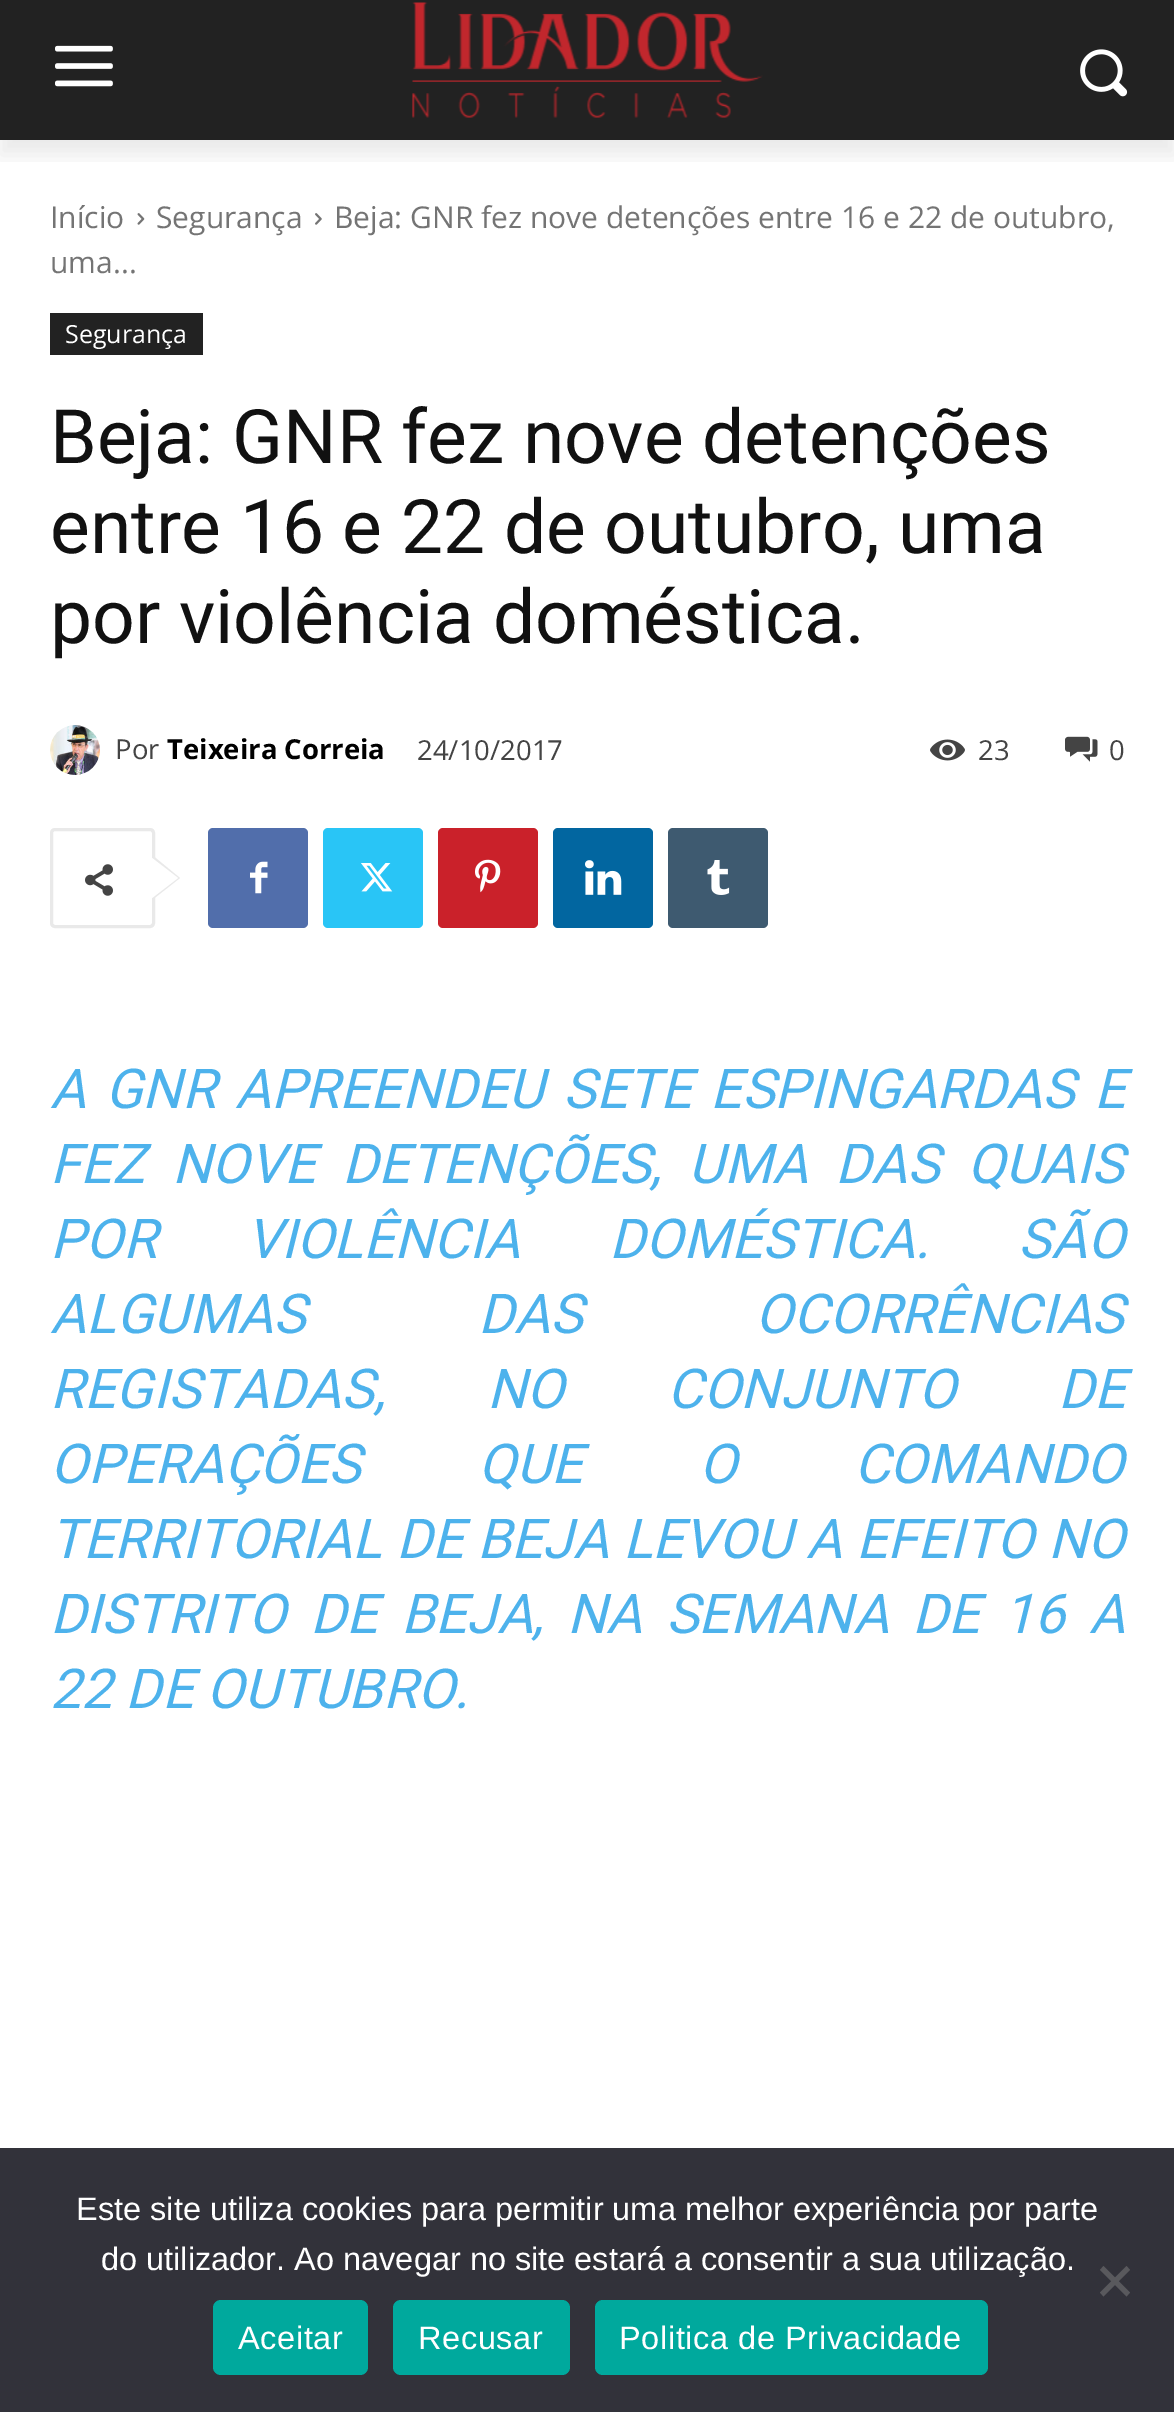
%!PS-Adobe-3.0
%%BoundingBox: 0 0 1174 2412
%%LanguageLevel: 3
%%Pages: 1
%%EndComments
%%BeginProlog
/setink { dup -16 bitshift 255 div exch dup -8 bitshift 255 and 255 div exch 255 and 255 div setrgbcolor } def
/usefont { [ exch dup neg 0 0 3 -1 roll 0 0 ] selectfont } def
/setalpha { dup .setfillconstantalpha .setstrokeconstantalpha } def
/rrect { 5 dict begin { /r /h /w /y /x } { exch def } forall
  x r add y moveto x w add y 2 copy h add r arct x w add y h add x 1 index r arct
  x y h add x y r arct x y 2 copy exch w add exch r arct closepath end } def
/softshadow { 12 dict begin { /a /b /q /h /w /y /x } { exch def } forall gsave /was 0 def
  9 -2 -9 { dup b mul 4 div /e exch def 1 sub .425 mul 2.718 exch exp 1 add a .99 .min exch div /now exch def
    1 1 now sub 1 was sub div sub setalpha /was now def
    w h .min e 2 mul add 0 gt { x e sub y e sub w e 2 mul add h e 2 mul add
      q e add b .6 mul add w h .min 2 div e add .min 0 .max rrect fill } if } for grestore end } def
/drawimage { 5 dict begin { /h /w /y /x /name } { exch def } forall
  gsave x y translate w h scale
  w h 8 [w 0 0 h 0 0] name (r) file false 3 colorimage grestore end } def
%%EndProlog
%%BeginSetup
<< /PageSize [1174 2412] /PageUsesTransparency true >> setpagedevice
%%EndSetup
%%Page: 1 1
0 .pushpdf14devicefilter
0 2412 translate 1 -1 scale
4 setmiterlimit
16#FFFFFF setink
0 0 1174 2412 rectfill
16#222222 setink
0 0 1174 140 rectfill
(img1.raw) 55 45 58 42 drawimage
(img2.raw) 412 2 351 116 drawimage
(img3.raw) 1080 49 48 48 drawimage
gsave
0 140 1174 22 rectclip
16#000000 setink
0 15 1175 140 0 10 0.08 softshadow
grestore
/OpenSans-Regular 30 usefont
16#747474 setink
50 228 moveto (Início) show
(img4.raw) 137 213 8 12 drawimage
156 228 moveto (Segurança) show
(img5.raw) 315 213 7 12 drawimage
334 228 moveto (Beja: GNR fez nove detenções entre 16 e 22 de outubro,) show
50 273 moveto (uma...) show
16#222222 setink
50 313 153 42 rectfill
/OpenSans-Regular 25 usefont
16#FFFFFF setink
65 343 moveto (Segurança) show
/Roboto-Regular 75 usefont
16#111111 setink
[
    [(Beja: GNR fez nove detenções) 50 463]
    [(entre 16 e 22 de outubro, uma) 50 553]
    [(por violência doméstica.) 50 643]
] { aload pop moveto show } forall
(img6.raw) 50 725 50 50 drawimage
/OpenSans-Regular 27.5 usefont
16#444444 setink
115 759 moveto (Por) show
/OpenSans-Bold 27.5 usefont
16#000000 setink
167 759 moveto (Teixeira Correia) show
/OpenSans-Regular 27.5 usefont
16#444444 setink
417 760 moveto (24/10/2017) show
(img7.raw) 930 739 35 22 drawimage
978 760 moveto (23) show
(img8.raw) 1065 736 33 26 drawimage
1109 760 moveto (0) show
16#E9E9E9 setink
3 setlinewidth
51.5 829.5 102 97 3.5 rrect stroke
152 900 moveto 152 855 lineto 180 878 lineto closepath fill
(img9.raw) 85 864 28 32 drawimage
16#FFFFFF setink
152 898 moveto 152 858 lineto 178 878 lineto closepath fill
16#516EAB setink
208 828 100 100 5 rrect fill
(img10.raw) 250 861 18 33 drawimage
16#29C5F6 setink
323 828 100 100 5 rrect fill
(img11.raw) 361 863 32 29 drawimage
16#CA212A setink
438 828 100 100 5 rrect fill
(img12.raw) 475 859 26 34 drawimage
16#0266A0 setink
553 828 100 100 5 rrect fill
(img13.raw) 585 860 37 35 drawimage
16#3E5A70 setink
668 828 100 100 5 rrect fill
(img14.raw) 707 860 23 35 drawimage
/Roboto-Italic 55 usefont
16#4DB2EC setink
50 1108 moveto 5.5 0 32 (A GNR APREENDEU SETE ESPINGARDAS E) widthshow
50 1183 moveto 13.5 0 32 (FEZ NOVE DETENÇÕES, UMA DAS QUAIS) widthshow
50 1258 moveto 75.5 0 32 (POR VIOLÊNCIA DOMÉSTICA. SÃO) widthshow
50 1333 moveto 159 0 32 (ALGUMAS DAS OCORRÊNCIAS) widthshow
50 1408 moveto 89 0 32 (REGISTADAS, NO CONJUNTO DE) widthshow
50 1483 moveto 103 0 32 (OPERAÇÕES QUE O COMANDO) widthshow
50 1558 moveto 0.25 0 32 (TERRITORIAL DE BEJA LEVOU A EFEITO NO) widthshow
50 1633 moveto 10 0 32 (DISTRITO DE BEJA, NA SEMANA DE 16 A) widthshow
50 1708 moveto (22 DE OUTUBRO.) show
16#32323A setink
0 2148 1174 264 rectfill
/LiberationSans-Regular 32.5 usefont
16#FFFFFF setink
76 2220 moveto (Este site utiliza cookies para permitir uma melhor experiência por parte) show
101 2270 moveto (do utilizador. Ao navegar no site estará a consentir a sua utilização.) show
16#59595D setink
1126.5 2266 moveto 1130 2270 lineto 1103.5 2296.5 lineto 1100 2292.5 lineto closepath fill
1100 2270 moveto 1103.5 2266 lineto 1130 2292.5 lineto 1126.5 2296.5 lineto closepath fill
16#00A99D setink
213 2300 155 75 8 rrect fill
16#FFFFFF setink
238 2349 moveto 0.6 0 (Aceitar) ashow
16#00A99D setink
393 2300 177 75 8 rrect fill
16#FFFFFF setink
418 2349 moveto 0.6 0 (Recusar) ashow
16#00A99D setink
595 2300 393 75 8 rrect fill
16#FFFFFF setink
619 2349 moveto 0.6 0 (Politica de Privacidade) ashow
.poppdf14devicefilter showpage
%%EOF
